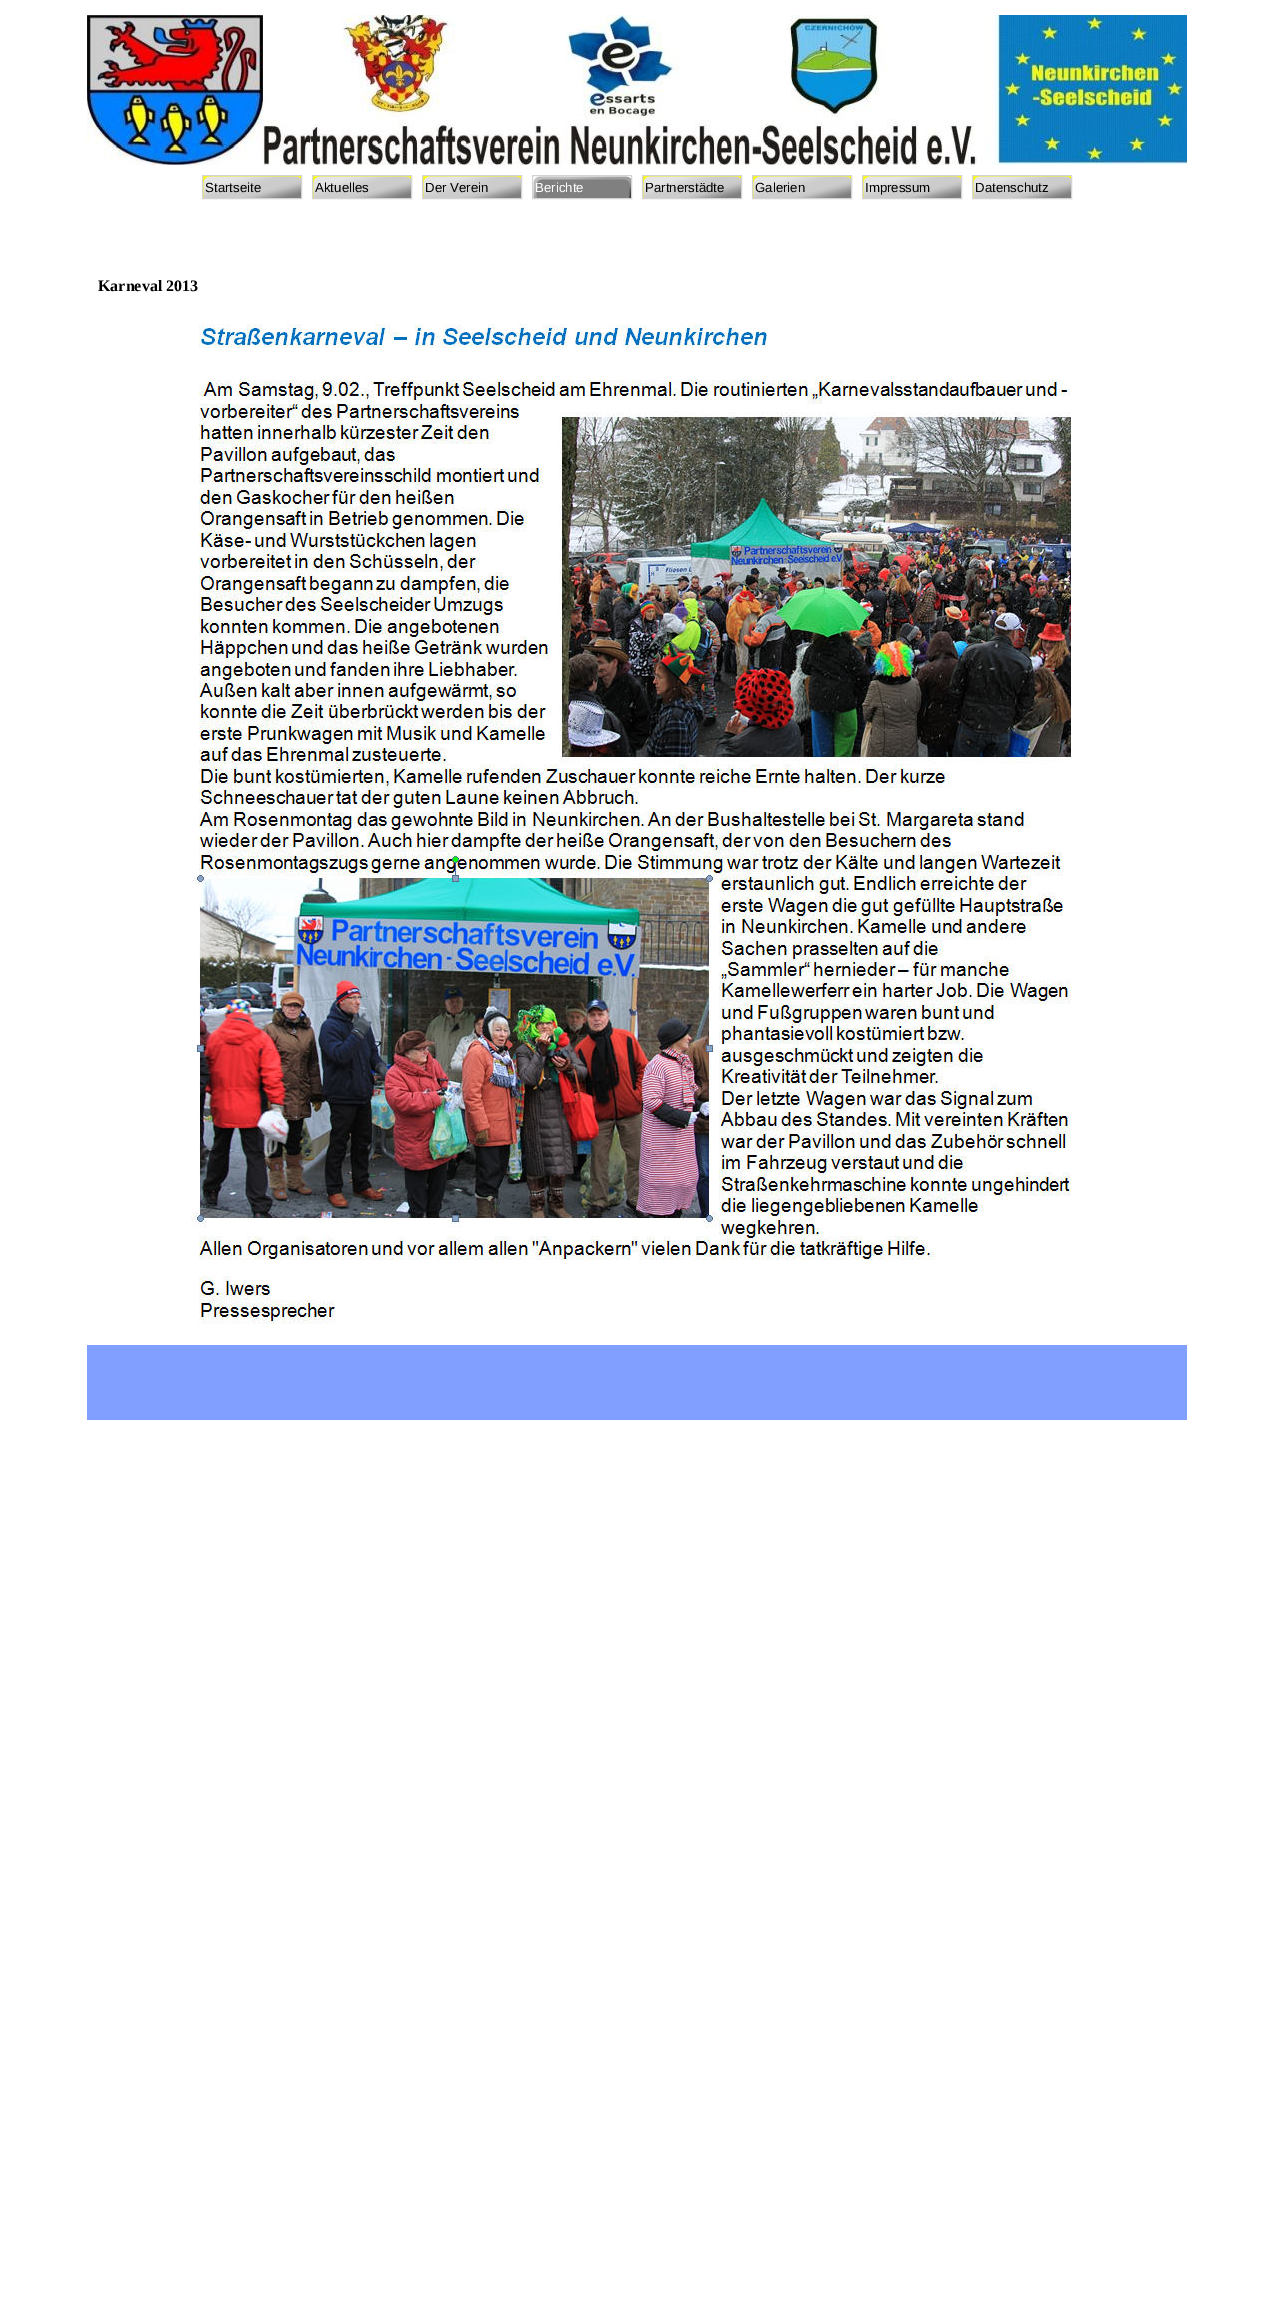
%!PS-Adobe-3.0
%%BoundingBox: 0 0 1273 2303
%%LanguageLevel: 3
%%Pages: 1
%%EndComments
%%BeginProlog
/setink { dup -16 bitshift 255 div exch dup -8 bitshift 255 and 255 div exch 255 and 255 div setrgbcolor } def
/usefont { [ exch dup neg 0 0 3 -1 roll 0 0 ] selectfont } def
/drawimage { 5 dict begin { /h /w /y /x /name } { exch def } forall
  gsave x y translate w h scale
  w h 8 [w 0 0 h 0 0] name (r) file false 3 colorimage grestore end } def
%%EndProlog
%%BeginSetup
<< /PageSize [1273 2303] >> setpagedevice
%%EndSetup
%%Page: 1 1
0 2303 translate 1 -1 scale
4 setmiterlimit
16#FFFFFF setink
0 0 1273 2303 rectfill
(img1.raw) 87 15 1100 150 drawimage
16#FFFF00 setink
203 176 98 22 rectfill
(img2.raw) 203 176 98 22 drawimage
16#D3D3D3 setink
202.5 175.5 99 23 rectstroke
/LiberationSans-Regular 13.25 usefont
16#000000 setink
205 192 moveto (Startseite) show
16#FFFF00 setink
313 176 98 22 rectfill
(img2.raw) 313 176 98 22 drawimage
16#D3D3D3 setink
312.5 175.5 99 23 rectstroke
16#000000 setink
315 192 moveto (Aktuelles) show
16#FFFF00 setink
423 176 98 22 rectfill
(img2.raw) 423 176 98 22 drawimage
16#D3D3D3 setink
422.5 175.5 99 23 rectstroke
16#000000 setink
425 192 moveto (Der Verein) show
(img3.raw) 533 176 98 22 drawimage
16#D3D3D3 setink
532.5 175.5 99 23 rectstroke
16#FFFFFF setink
535 192 moveto (Berichte) show
16#FFFF00 setink
643 176 98 22 rectfill
(img2.raw) 643 176 98 22 drawimage
16#D3D3D3 setink
642.5 175.5 99 23 rectstroke
16#000000 setink
645 192 moveto (Partnerstädte) show
16#FFFF00 setink
753 176 98 22 rectfill
(img2.raw) 753 176 98 22 drawimage
16#D3D3D3 setink
752.5 175.5 99 23 rectstroke
16#000000 setink
755 192 moveto (Galerien) show
16#FFFF00 setink
863 176 98 22 rectfill
(img2.raw) 863 176 98 22 drawimage
16#D3D3D3 setink
862.5 175.5 99 23 rectstroke
16#000000 setink
865 192 moveto (Impressum) show
16#FFFF00 setink
973 176 98 22 rectfill
(img2.raw) 973 176 98 22 drawimage
16#D3D3D3 setink
972.5 175.5 99 23 rectstroke
16#000000 setink
975 192 moveto (Datenschutz) show
/LiberationSerif-Bold 16 usefont
98 291 moveto (Karneval 2013) show
(img4.raw) 191 324 880 1000 drawimage
16#809FFF setink
87 1345 1100 75 rectfill
showpage
%%EOF
